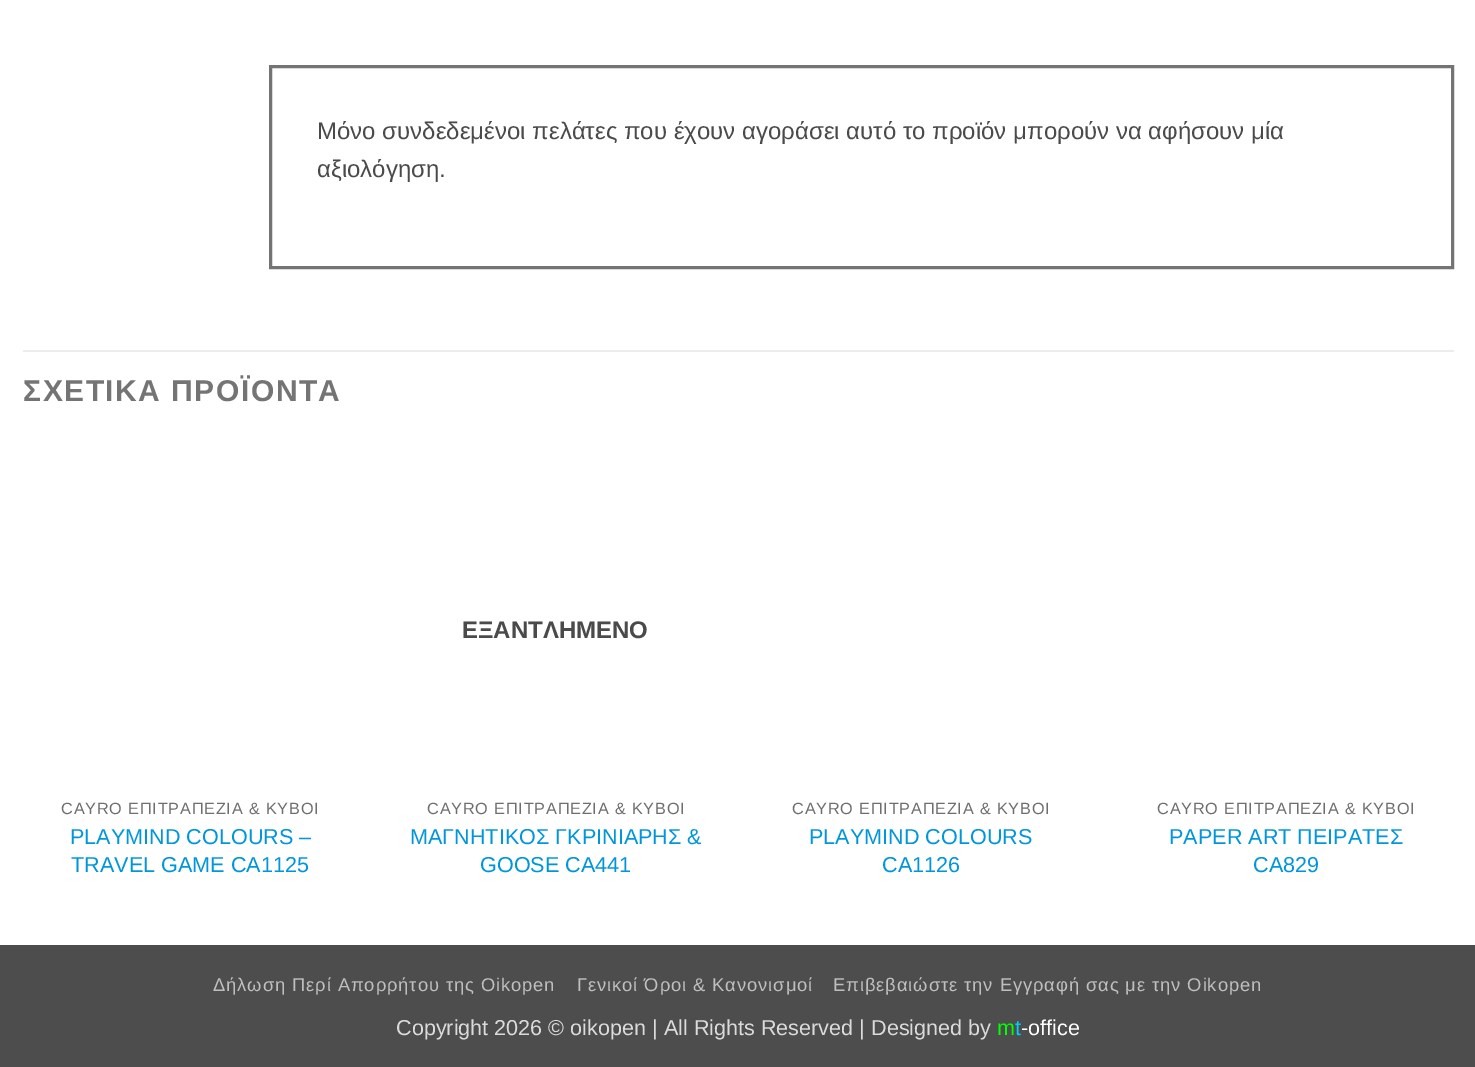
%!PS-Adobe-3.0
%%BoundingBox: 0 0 1475 1067
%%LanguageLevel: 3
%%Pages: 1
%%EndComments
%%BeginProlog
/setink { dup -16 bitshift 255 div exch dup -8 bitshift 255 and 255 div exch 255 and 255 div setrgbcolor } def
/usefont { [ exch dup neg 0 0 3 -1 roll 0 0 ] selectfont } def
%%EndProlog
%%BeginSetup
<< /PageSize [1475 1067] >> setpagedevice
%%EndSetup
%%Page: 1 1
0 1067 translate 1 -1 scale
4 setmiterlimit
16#FFFFFF setink
0 0 1475 1067 rectfill
16#747474 setink
3 setlinewidth
270.5 66.5 1182 201 rectstroke
/LiberationSans-Regular 24 usefont
16#4A4A4A setink
317 139 moveto (Μόνο συνδεδεμένοι πελάτες που έχουν αγοράσει αυτό το προϊόν μπορούν να αφήσουν μία) show
317 177 moveto (αξιολόγηση.) show
16#ECECEC setink
23 350 1431 2 rectfill
/LiberationSans-Bold 30 usefont
16#747474 setink
23 401 moveto 1.5 0 (ΣΧΕΤΙΚΑ ΠΡΟΪΟΝΤΑ) ashow
/LiberationSans-Regular 16.25 usefont
16#6E6E6E setink
61 814 moveto 0.8 0 (CAYRO ΕΠΙΤΡΑΠΕΖΙΑ & ΚΥΒΟΙ) ashow
/LiberationSans-Regular 21.6 usefont
16#0096DA setink
70 844 moveto (PLAYMIND COLOURS –) show
71 872 moveto (TRAVEL GAME CA1125) show
/LiberationSans-Bold 24 usefont
16#4A4A4A setink
462 638 moveto (ΕΞΑΝΤΛΗΜΕΝΟ) show
/LiberationSans-Regular 16.25 usefont
16#6E6E6E setink
427 814 moveto 0.8 0 (CAYRO ΕΠΙΤΡΑΠΕΖΙΑ & ΚΥΒΟΙ) ashow
/LiberationSans-Regular 21.6 usefont
16#0096DA setink
410 844 moveto (ΜΑΓΝΗΤΙΚΟΣ ΓΚΡΙΝΙΑΡΗΣ &) show
480 872 moveto (GOOSE CA441) show
/LiberationSans-Regular 16.25 usefont
16#6E6E6E setink
792 814 moveto 0.8 0 (CAYRO ΕΠΙΤΡΑΠΕΖΙΑ & ΚΥΒΟΙ) ashow
/LiberationSans-Regular 21.6 usefont
16#0096DA setink
809 844 moveto (PLAYMIND COLOURS) show
882 872 moveto (CA1126) show
/LiberationSans-Regular 16.25 usefont
16#6E6E6E setink
1157 814 moveto 0.8 0 (CAYRO ΕΠΙΤΡΑΠΕΖΙΑ & ΚΥΒΟΙ) ashow
/LiberationSans-Regular 21.6 usefont
16#0096DA setink
1169 844 moveto (PAPER ART ΠΕΙΡΑΤΕΣ) show
1253 872 moveto (CA829) show
16#4D4D4D setink
0 945 1475 122 rectfill
/LiberationSans-Regular 18.4 usefont
16#BFBFBF setink
213 991 moveto 0.9 0 (Δήλωση Περί Απορρήτου της Oikopen) ashow
577 991 moveto 0.9 0 (Γενικοί Όροι & Κανονισμοί) ashow
833 991 moveto 0.9 0 (Επιβεβαιώστε την Εγγραφή σας με την Oikopen) ashow
/LiberationSans-Regular 21.6 usefont
16#DBDBDB setink
396 1035 moveto (Copyright 2026 © oikopen | All Rights Reserved | Designed by) show
16#00FF00 setink
997 1035 moveto (m) show
16#00CCFF setink
1015 1035 moveto (t) show
16#FFFFFF setink
1021 1035 moveto (-office) show
showpage
%%EOF
